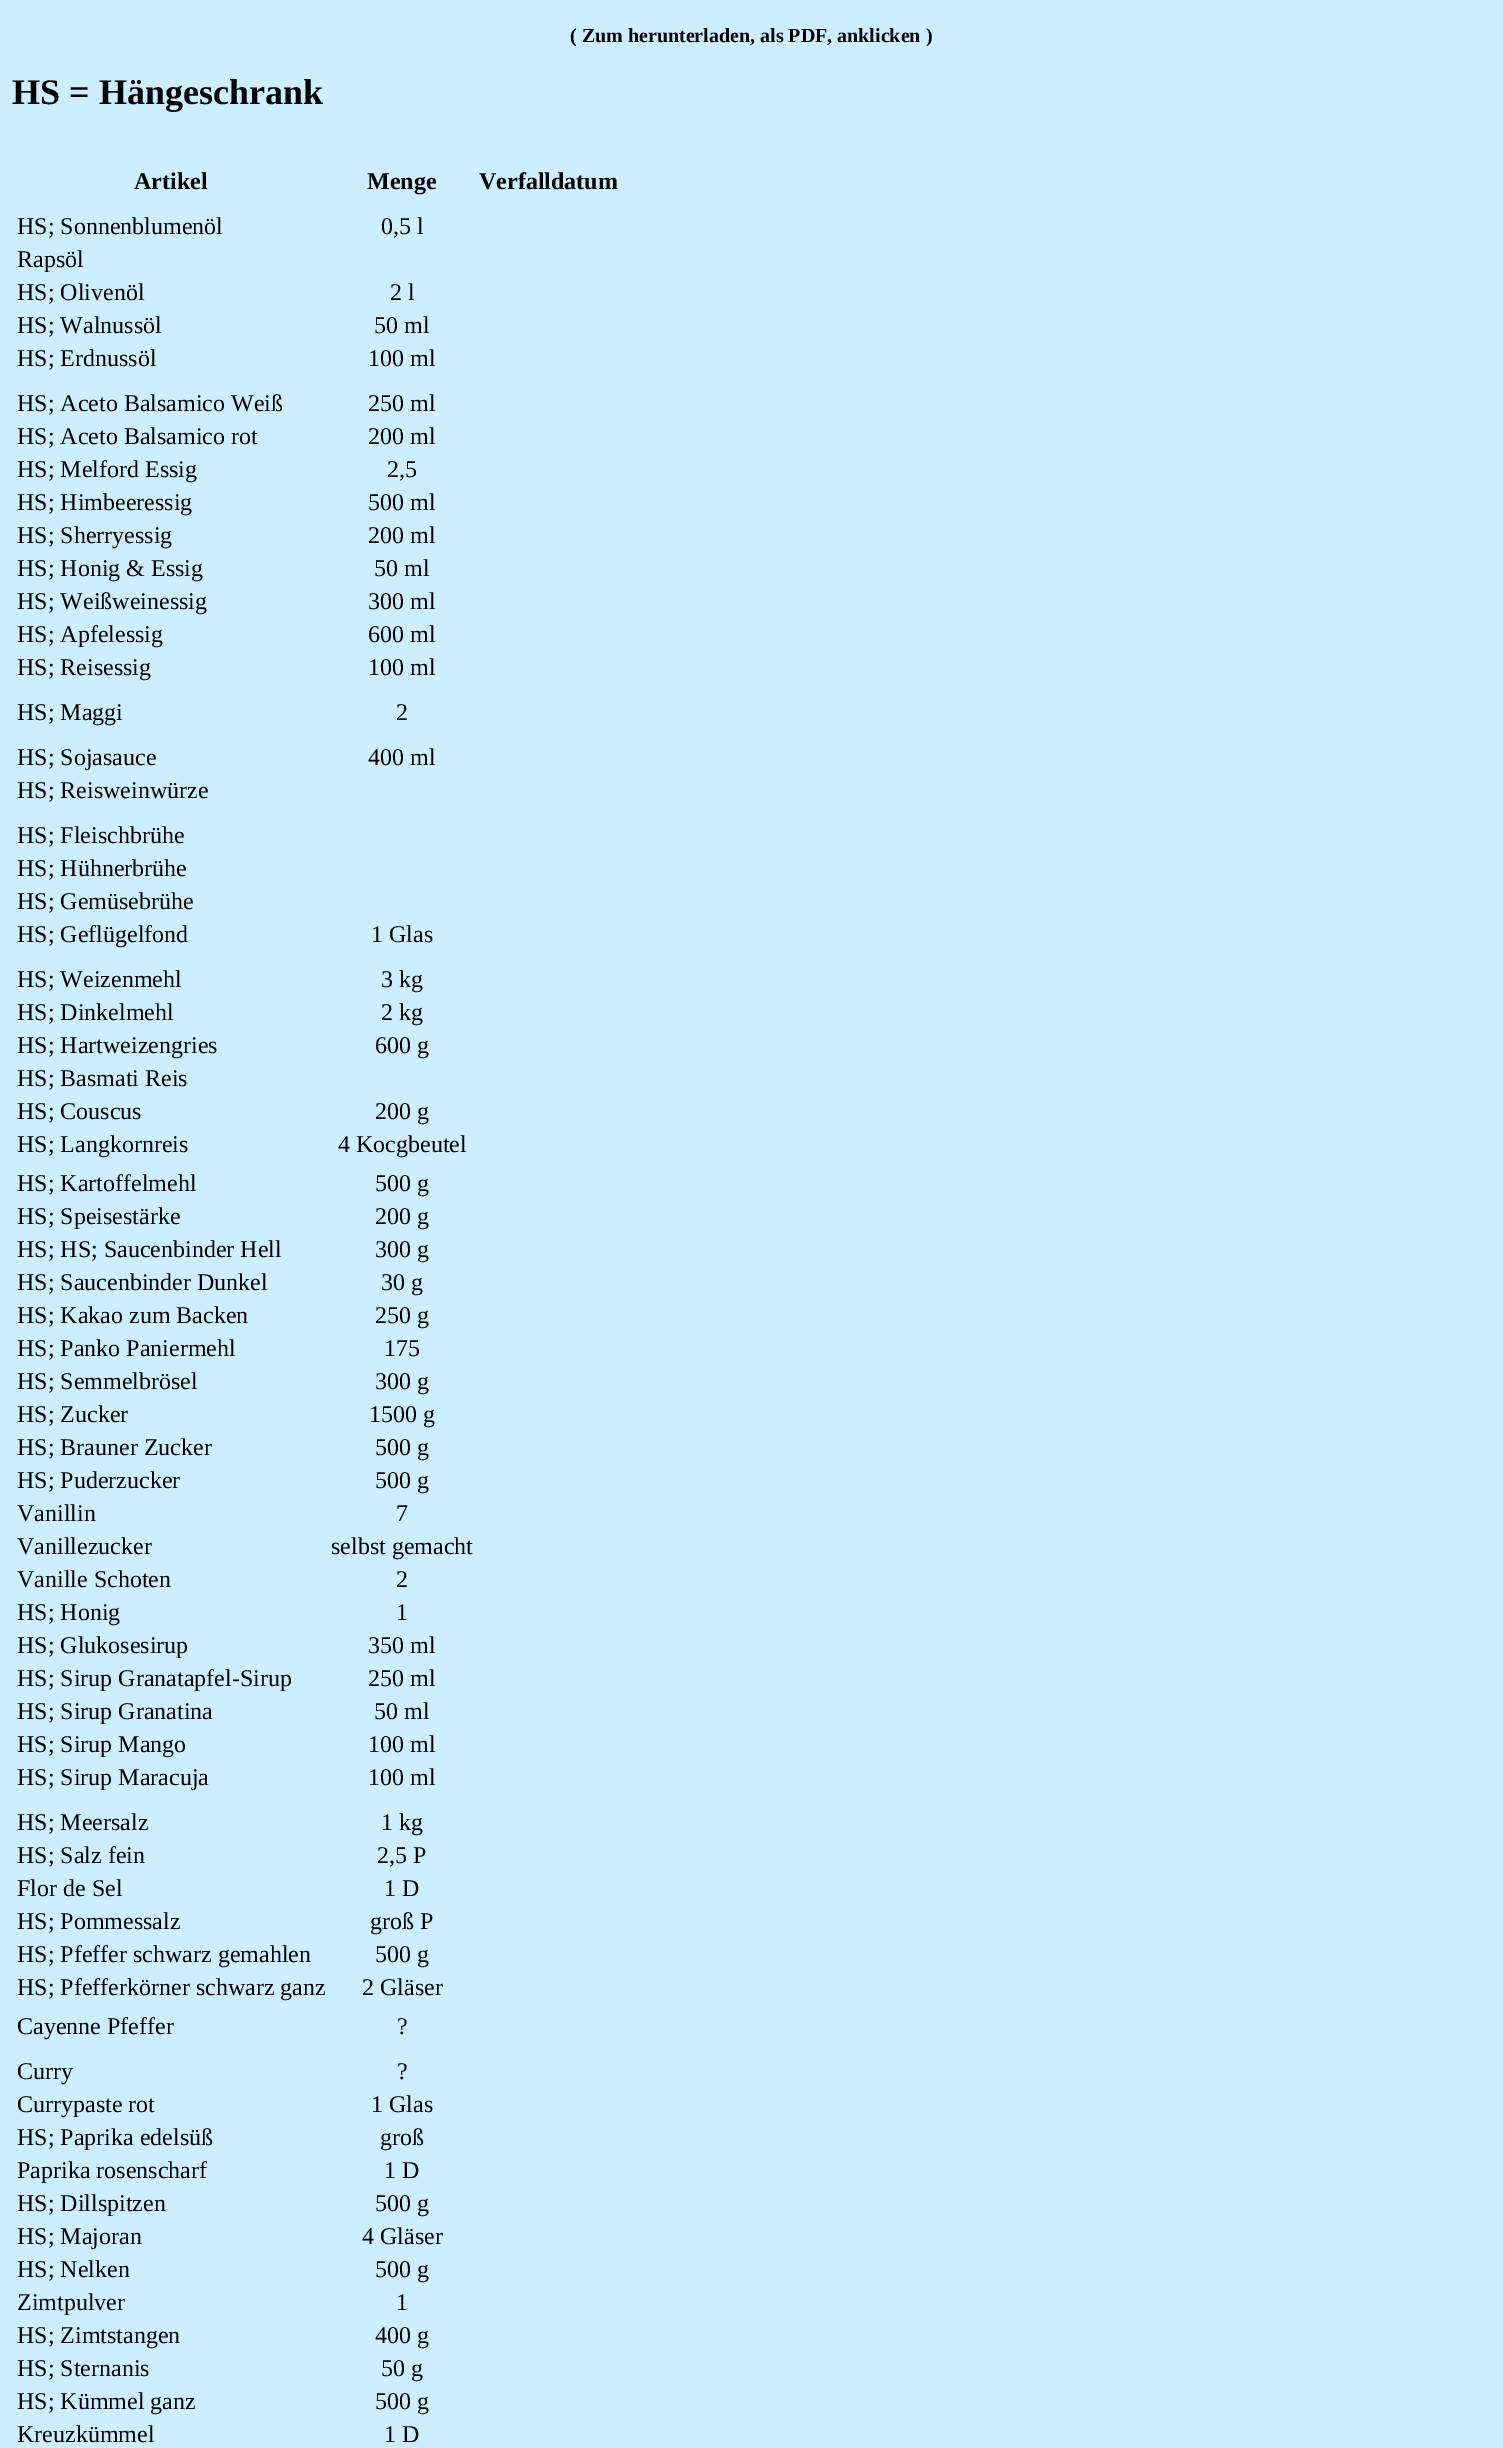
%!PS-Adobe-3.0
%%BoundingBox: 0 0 1503 2448
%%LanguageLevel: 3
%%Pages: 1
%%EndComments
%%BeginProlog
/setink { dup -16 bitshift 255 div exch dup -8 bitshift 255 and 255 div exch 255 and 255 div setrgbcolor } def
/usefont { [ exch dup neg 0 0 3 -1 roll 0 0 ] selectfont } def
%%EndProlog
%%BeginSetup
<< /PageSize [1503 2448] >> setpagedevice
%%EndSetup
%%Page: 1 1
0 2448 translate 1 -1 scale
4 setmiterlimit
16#CCEEFF setink
0 0 1503 2448 rectfill
/LiberationSerif-Bold 20 usefont
16#000000 setink
570 42 moveto (\( Zum herunterladen, als PDF, anklicken \)) show
/LiberationSerif-Bold 36 usefont
12 104 moveto (HS = Hängeschrank) show
/LiberationSerif-Bold 24 usefont
[
    [(Artikel) 134 189]
    [(Menge) 367 189]
    [(Verfalldatum) 479 189]
] { aload pop moveto show } forall
/LiberationSerif-Regular 24 usefont
[
    [(HS; Sonnenblumenöl) 17 234]
    [(0,5 l) 381 234]
    [(Rapsöl) 17 267]
    [(HS; Olivenöl) 17 300]
    [(2 l) 390 300]
    [(HS; Walnussöl) 17 333]
    [(50 ml) 374 333]
    [(HS; Erdnussöl) 17 366]
    [(100 ml) 368 366]
    [(HS; Aceto Balsamico Weiß) 17 411]
    [(250 ml) 368 411]
    [(HS; Aceto Balsamico rot) 17 444]
    [(200 ml) 368 444]
    [(HS; Melford Essig) 17 477]
    [(2,5) 387 477]
    [(HS; Himbeeressig) 17 510]
    [(500 ml) 368 510]
    [(HS; Sherryessig) 17 543]
    [(200 ml) 368 543]
    [(HS; Honig & Essig) 17 576]
    [(50 ml) 374 576]
    [(HS; Weißweinessig) 17 609]
    [(300 ml) 368 609]
    [(HS; Apfelessig) 17 642]
    [(600 ml) 368 642]
    [(HS; Reisessig) 17 675]
    [(100 ml) 368 675]
    [(HS; Maggi) 17 720]
    [(2) 396 720]
    [(HS; Sojasauce) 17 765]
    [(400 ml) 368 765]
    [(HS; Reisweinwürze) 17 798]
    [(HS; Fleischbrühe) 17 843]
    [(HS; Hühnerbrühe) 17 876]
    [(HS; Gemüsebrühe) 17 909]
    [(HS; Geflügelfond) 17 942]
    [(1 Glas) 371 942]
    [(HS; Weizenmehl) 17 987]
    [(3 kg) 381 987]
    [(HS; Dinkelmehl) 17 1020]
    [(2 kg) 381 1020]
    [(HS; Hartweizengries) 17 1053]
    [(600 g) 375 1053]
    [(HS; Basmati Reis) 17 1086]
    [(HS; Couscus) 17 1119]
    [(200 g) 375 1119]
    [(HS; Langkornreis) 17 1152]
    [(4 Kocgbeutel) 338 1152]
    [(HS; Kartoffelmehl) 17 1191]
    [(500 g) 375 1191]
    [(HS; Speisestärke) 17 1224]
    [(200 g) 375 1224]
    [(HS; HS; Saucenbinder Hell) 17 1257]
    [(300 g) 375 1257]
    [(HS; Saucenbinder Dunkel) 17 1290]
    [(30 g) 381 1290]
    [(HS; Kakao zum Backen) 17 1323]
    [(250 g) 375 1323]
    [(HS; Panko Paniermehl) 17 1356]
    [(175) 384 1356]
    [(HS; Semmelbrösel) 17 1389]
    [(300 g) 375 1389]
    [(HS; Zucker) 17 1422]
    [(1500 g) 369 1422]
    [(HS; Brauner Zucker) 17 1455]
    [(500 g) 375 1455]
    [(HS; Puderzucker) 17 1488]
    [(500 g) 375 1488]
    [(Vanillin) 17 1521]
    [(7) 396 1521]
    [(Vanillezucker) 17 1554]
    [(selbst gemacht) 331 1554]
    [(Vanille Schoten) 17 1587]
    [(2) 396 1587]
    [(HS; Honig) 17 1620]
    [(1) 396 1620]
    [(HS; Glukosesirup) 17 1653]
    [(350 ml) 368 1653]
    [(HS; Sirup Granatapfel-Sirup) 17 1686]
    [(250 ml) 368 1686]
    [(HS; Sirup Granatina) 17 1719]
    [(50 ml) 374 1719]
    [(HS; Sirup Mango) 17 1752]
    [(100 ml) 368 1752]
    [(HS; Sirup Maracuja) 17 1785]
    [(100 ml) 368 1785]
    [(HS; Meersalz) 17 1830]
    [(1 kg) 381 1830]
    [(HS; Salz fein) 17 1863]
    [(2,5 P) 377 1863]
    [(Flor de Sel) 17 1896]
    [(1 D) 384 1896]
    [(HS; Pommessalz) 17 1929]
    [(groß P) 370 1929]
    [(HS; Pfeffer schwarz gemahlen) 17 1962]
    [(500 g) 375 1962]
    [(HS; Pfefferkörner schwarz ganz) 17 1995]
    [(2 Gläser) 362 1995]
    [(Cayenne Pfeffer) 17 2034]
    [(?) 397 2034]
    [(Curry) 17 2079]
    [(?) 397 2079]
    [(Currypaste rot) 17 2112]
    [(1 Glas) 371 2112]
    [(HS; Paprika edelsüß) 17 2145]
    [(groß) 380 2145]
    [(Paprika rosenscharf) 17 2178]
    [(1 D) 384 2178]
    [(HS; Dillspitzen) 17 2211]
    [(500 g) 375 2211]
    [(HS; Majoran) 17 2244]
    [(4 Gläser) 362 2244]
    [(HS; Nelken) 17 2277]
    [(500 g) 375 2277]
    [(Zimtpulver) 17 2310]
    [(1) 396 2310]
    [(HS; Zimtstangen) 17 2343]
    [(400 g) 375 2343]
    [(HS; Sternanis) 17 2376]
    [(50 g) 381 2376]
    [(HS; Kümmel ganz) 17 2409]
    [(500 g) 375 2409]
    [(Kreuzkümmel) 17 2442]
    [(1 D) 384 2442]
] { aload pop moveto show } forall
showpage
%%EOF
